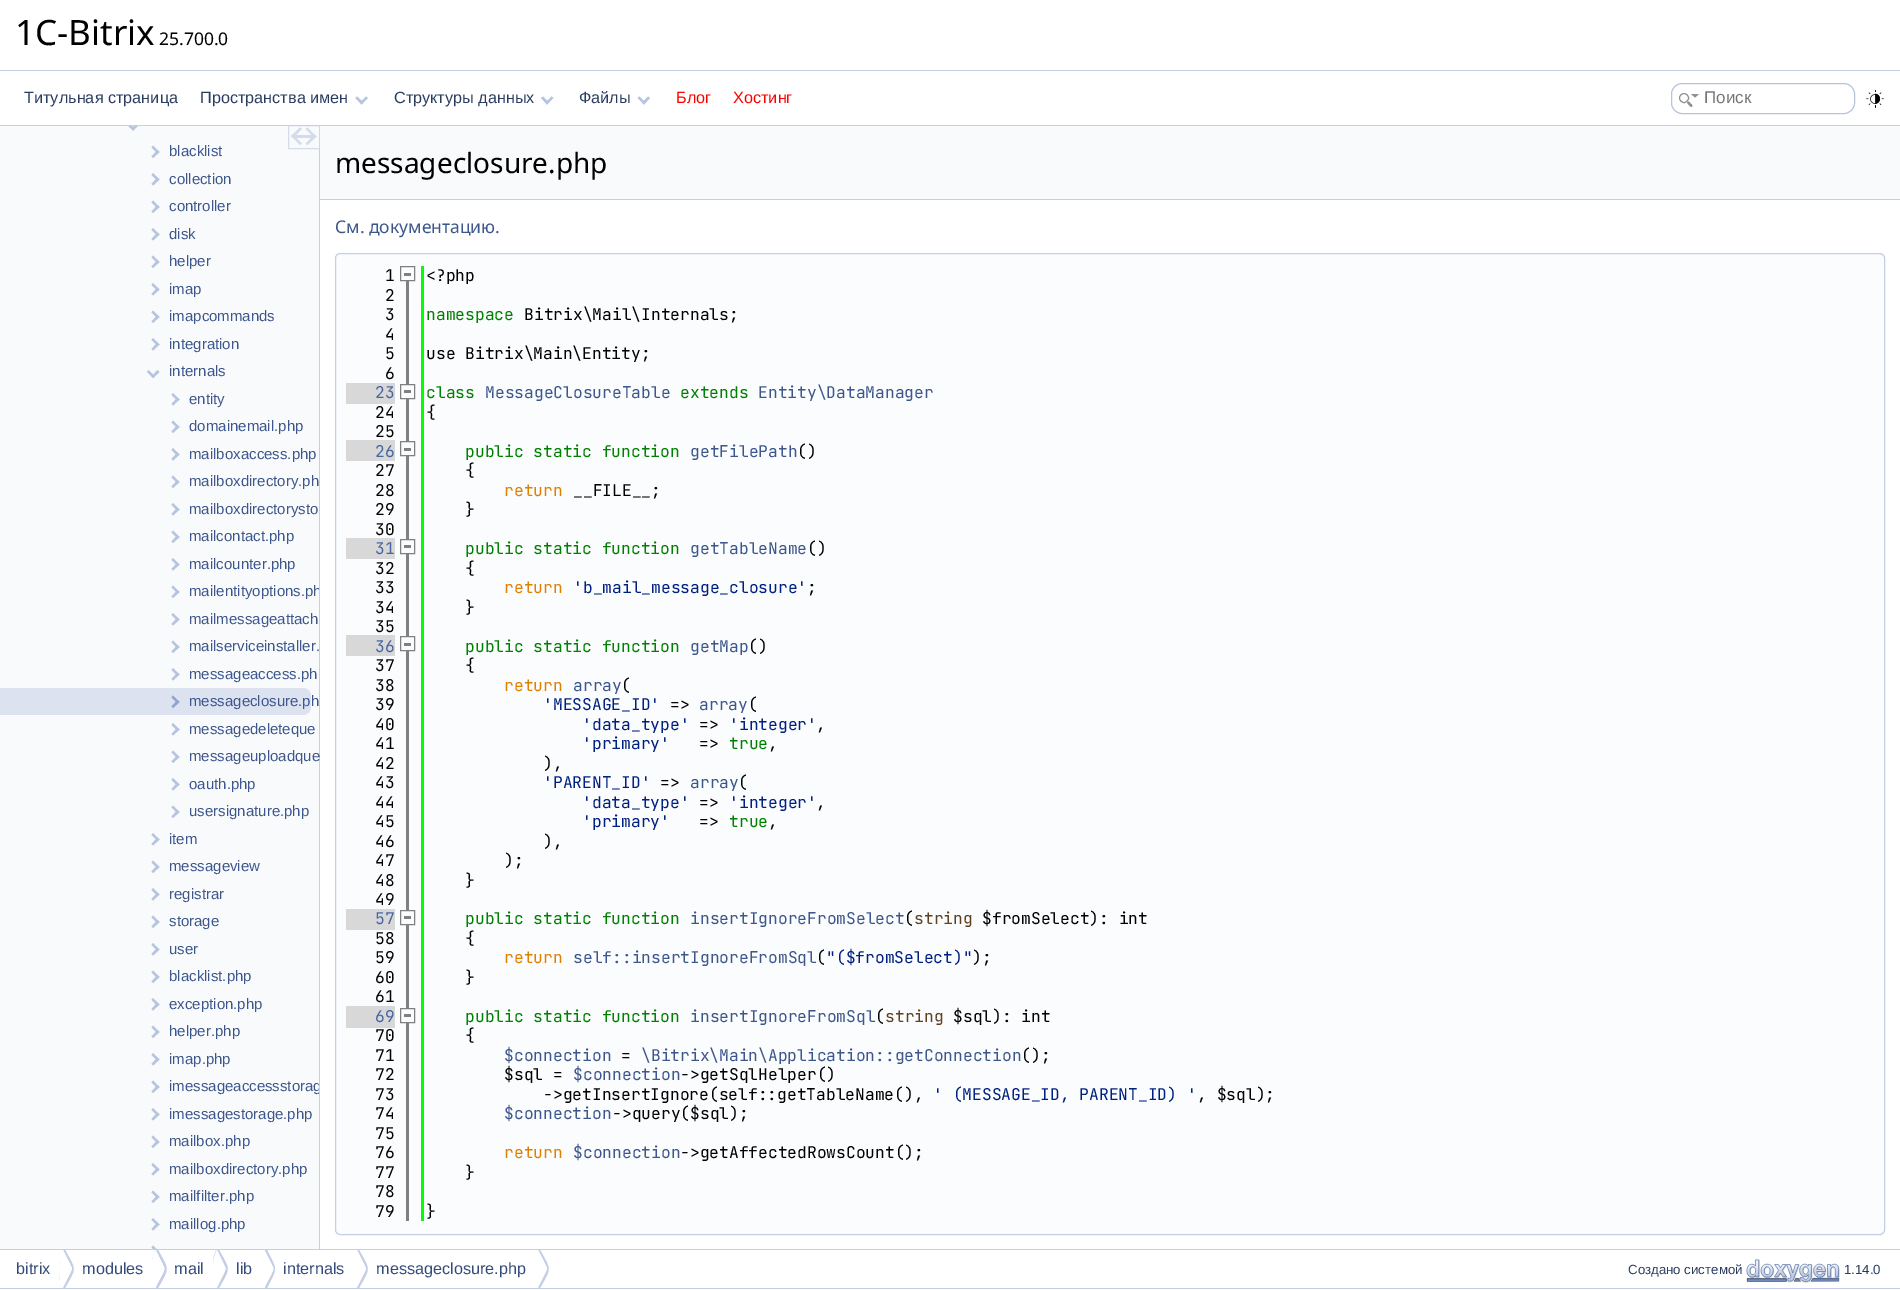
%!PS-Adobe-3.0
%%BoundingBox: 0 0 1900 1290
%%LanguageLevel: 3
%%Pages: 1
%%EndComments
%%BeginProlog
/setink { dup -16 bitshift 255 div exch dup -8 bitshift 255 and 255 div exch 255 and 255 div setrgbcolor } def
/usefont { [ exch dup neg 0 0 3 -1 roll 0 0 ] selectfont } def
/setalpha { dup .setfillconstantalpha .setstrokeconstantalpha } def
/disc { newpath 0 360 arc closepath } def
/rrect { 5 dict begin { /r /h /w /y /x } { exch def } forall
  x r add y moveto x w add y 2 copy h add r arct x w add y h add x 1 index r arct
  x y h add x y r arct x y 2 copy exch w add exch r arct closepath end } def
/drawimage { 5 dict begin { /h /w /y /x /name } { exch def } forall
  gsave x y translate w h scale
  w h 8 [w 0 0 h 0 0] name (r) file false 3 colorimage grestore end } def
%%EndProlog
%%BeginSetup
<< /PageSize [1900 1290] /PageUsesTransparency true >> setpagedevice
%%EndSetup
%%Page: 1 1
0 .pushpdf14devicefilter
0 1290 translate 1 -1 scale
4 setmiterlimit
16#FFFFFF setink
0 0 1900 1290 rectfill
16#C4CFE5 setink
0 70 1900 1 rectfill
/NotoSans-Regular 35 usefont
16#000000 setink
15 45 moveto (1C-Bitrix) show
/NotoSans-Regular 17.5 usefont
159 45 moveto (25.700.0) show
16#C4CFE5 setink
0 125 1900 1 rectfill
/LiberationSans-Regular 16.25 usefont
16#2A3D61 setink
24 103 moveto (Титульная страница) show
200 103 moveto (Пространства имен) show
16#B6C4DF setink
366 96.5 moveto 368 98 lineto 361.5 104.5 lineto 360 102.5 lineto closepath fill
357 96.5 moveto 363.5 102.5 lineto 361.5 104.5 lineto 355.5 98 lineto closepath fill
16#2A3D61 setink
394 103 moveto (Структуры данных) show
16#B6C4DF setink
551.5 96.5 moveto 553.5 98 lineto 547 104.5 lineto 545.5 102.5 lineto closepath fill
543 96.5 moveto 549 102.5 lineto 547 104.5 lineto 541 98 lineto closepath fill
16#2A3D61 setink
579 103 moveto (Файлы) show
16#B6C4DF setink
648 96.5 moveto 650 98 lineto 644 104.5 lineto 642 102.5 lineto closepath fill
639.5 96.5 moveto 645.5 102.5 lineto 644 104.5 lineto 637.5 98 lineto closepath fill
16#FF0000 setink
676 103 moveto (Блог) show
733 103 moveto (Хостинг) show
16#B6C4DF setink
1671.5 83.5 183 30 10.5 rrect stroke
16#909090 setink
1684 98 4.5 disc stroke
1691 94 moveto 1699 94 lineto 1695 97.5 lineto closepath 1687.5 102 moveto 1689 101 1690 102.5 1690.5 103.5 curveto 1691.5 104 1693 105.5 1692 106.5 curveto 1691 107.5 1689.5 106 1689 105 curveto 1688.5 104.5 1686.5 103 1687.5 102 curveto closepath fill
/LiberationSans-Regular 17 usefont
16#757575 setink
1704 103 moveto (Поиск) show
(img1.raw) 1866 90 18 18 drawimage
[
    [0 126 319 1123 16#F9FAFC]
    [319 149 1 1100 16#C4CFE5]
    [319 126 1 23 16#E9EDF5]
] { aload pop setink rectfill } forall
gsave
0 126 328 1123 rectclip
0.7 setalpha
16#C4CFE5 setink
288.5 125.5 31 23 rectstroke
grestore
16#D4DCEC setink
291 136 moveto 300 127.5 lineto 302 129 lineto 293 138 lineto closepath fill
291 136 moveto 293 134.5 lineto 302 143.5 lineto 300 145 lineto closepath 305.5 129 moveto 307.5 127.5 lineto 316.5 136.5 lineto 314.5 138 lineto closepath fill
305.5 143.5 moveto 314.5 134.5 lineto 316.5 136.5 lineto 307.5 145 lineto closepath fill
294 135 20 3 rectfill
gsave
0 126 319 1123 rectclip
16#B6C4DF setink
137.5 122.5 moveto 139.5 124.5 lineto 133 130.5 lineto 131.5 129 lineto closepath fill
128.5 122.5 moveto 135 129 lineto 133 130.5 lineto 127 124.5 lineto closepath fill
grestore
16#B6C4DF setink
151.5 147.5 moveto 153 145.5 lineto 159.5 152 lineto 157.5 153.5 lineto closepath fill
151.5 156.5 moveto 157.5 150 lineto 159.5 152 lineto 153 158 lineto closepath 151.5 175 moveto 153 173 lineto 159.5 179.5 lineto 157.5 181 lineto closepath fill
/LiberationSans-Regular 15 usefont
16#3D578C setink
169 156 moveto (blacklist) show
16#B6C4DF setink
151.5 184 moveto 157.5 177.5 lineto 159.5 179.5 lineto 153 185.5 lineto closepath 151.5 202.5 moveto 153 200.5 lineto 159.5 207 lineto 157.5 208.5 lineto closepath fill
16#3D578C setink
169 184 moveto (collection) show
16#B6C4DF setink
151.5 211.5 moveto 157.5 205 lineto 159.5 207 lineto 153 213 lineto closepath 151.5 230 moveto 153 228 lineto 159.5 234.5 lineto 157.5 236 lineto closepath fill
16#3D578C setink
169 211 moveto (controller) show
16#B6C4DF setink
151.5 239 moveto 157.5 232.5 lineto 159.5 234.5 lineto 153 240.5 lineto closepath 151.5 257.5 moveto 153 255.5 lineto 159.5 262 lineto 157.5 263.5 lineto closepath fill
16#3D578C setink
169 239 moveto (disk) show
16#B6C4DF setink
151.5 266.5 moveto 157.5 260 lineto 159.5 262 lineto 153 268 lineto closepath 151.5 285 moveto 153 283 lineto 159.5 289.5 lineto 157.5 291 lineto closepath fill
16#3D578C setink
169 266 moveto (helper) show
16#B6C4DF setink
151.5 294 moveto 157.5 287.5 lineto 159.5 289.5 lineto 153 295.5 lineto closepath 151.5 312.5 moveto 153 310.5 lineto 159.5 317 lineto 157.5 318.5 lineto closepath fill
16#3D578C setink
169 294 moveto (imap) show
16#B6C4DF setink
151.5 321.5 moveto 157.5 315 lineto 159.5 317 lineto 153 323 lineto closepath 151.5 340 moveto 153 338 lineto 159.5 344.5 lineto 157.5 346 lineto closepath fill
16#3D578C setink
169 321 moveto (imapcommands) show
16#B6C4DF setink
151.5 349 moveto 157.5 342.5 lineto 159.5 344.5 lineto 153 350.5 lineto closepath 157.5 370 moveto 159.5 372 lineto 153 378 lineto 151.5 376.5 lineto closepath fill
16#3D578C setink
169 349 moveto (integration) show
169 376 moveto (internals) show
16#B6C4DF setink
148.5 370 moveto 155 376.5 lineto 153 378 lineto 147 372 lineto closepath 171.5 395 moveto 173 393 lineto 179.5 399.5 lineto 177.5 401 lineto closepath fill
171.5 404 moveto 177.5 397.5 lineto 179.5 399.5 lineto 173 405.5 lineto closepath 171.5 422.5 moveto 173 420.5 lineto 179.5 427 lineto 177.5 428.5 lineto closepath fill
16#3D578C setink
189 404 moveto (entity) show
16#B6C4DF setink
171.5 431.5 moveto 177.5 425 lineto 179.5 427 lineto 173 433 lineto closepath 171.5 450 moveto 173 448 lineto 179.5 454.5 lineto 177.5 456 lineto closepath fill
16#3D578C setink
189 431 moveto (domainemail.php) show
16#B6C4DF setink
171.5 459 moveto 177.5 452.5 lineto 179.5 454.5 lineto 173 460.5 lineto closepath 171.5 477.5 moveto 173 475.5 lineto 179.5 482 lineto 177.5 483.5 lineto closepath fill
16#3D578C setink
189 459 moveto (mailboxaccess.php) show
16#B6C4DF setink
171.5 486.5 moveto 177.5 480 lineto 179.5 482 lineto 173 488 lineto closepath 171.5 505 moveto 173 503 lineto 179.5 509.5 lineto 177.5 511 lineto closepath fill
16#3D578C setink
189 486 moveto (mailboxdirectory.ph) show
16#B6C4DF setink
171.5 514 moveto 177.5 507.5 lineto 179.5 509.5 lineto 173 515.5 lineto closepath 171.5 532.5 moveto 173 530.5 lineto 179.5 537 lineto 177.5 538.5 lineto closepath fill
16#3D578C setink
189 514 moveto (mailboxdirectorysto) show
16#B6C4DF setink
171.5 541.5 moveto 177.5 535 lineto 179.5 537 lineto 173 543 lineto closepath 171.5 560 moveto 173 558 lineto 179.5 564.5 lineto 177.5 566 lineto closepath fill
16#3D578C setink
189 541 moveto (mailcontact.php) show
16#B6C4DF setink
171.5 569 moveto 177.5 562.5 lineto 179.5 564.5 lineto 173 570.5 lineto closepath 171.5 587.5 moveto 173 585.5 lineto 179.5 592 lineto 177.5 593.5 lineto closepath fill
16#3D578C setink
189 569 moveto (mailcounter.php) show
16#B6C4DF setink
171.5 596.5 moveto 177.5 590 lineto 179.5 592 lineto 173 598 lineto closepath 171.5 615 moveto 173 613 lineto 179.5 619.5 lineto 177.5 621 lineto closepath fill
gsave
0 126 319 1123 rectclip
16#3D578C setink
189 596 moveto (mailentityoptions.ph) show
grestore
171.5 624 moveto 177.5 617.5 lineto 179.5 619.5 lineto 173 625.5 lineto closepath 171.5 642.5 moveto 173 640.5 lineto 179.5 647 lineto 177.5 648.5 lineto closepath fill
16#3D578C setink
189 624 moveto (mailmessageattach) show
16#B6C4DF setink
171.5 651.5 moveto 177.5 645 lineto 179.5 647 lineto 173 653 lineto closepath 171.5 670 moveto 173 668 lineto 179.5 674.5 lineto 177.5 676 lineto closepath fill
16#3D578C setink
189 651 moveto (mailserviceinstaller.) show
16#B6C4DF setink
171.5 679 moveto 177.5 672.5 lineto 179.5 674.5 lineto 173 680.5 lineto closepath fill
16#3D578C setink
189 679 moveto (messageaccess.ph) show
16#DCE2EF setink
0 688 moveto 303 688 lineto 307.5 688 311 691.5 311 696 curveto 311 707 lineto 311 711.5 307.5 715 303 715 curveto 0 715 lineto closepath fill
16#90A5CE setink
171.5 697.5 moveto 173 695.5 lineto 179.5 702 lineto 177.5 703.5 lineto closepath fill
171.5 706.5 moveto 177.5 700 lineto 179.5 702 lineto 173 708 lineto closepath fill
16#3D578C setink
189 706 moveto (messageclosure.ph) show
16#B6C4DF setink
171.5 725 moveto 173 723 lineto 179.5 729.5 lineto 177.5 731 lineto closepath fill
171.5 734 moveto 177.5 727.5 lineto 179.5 729.5 lineto 173 735.5 lineto closepath 171.5 752.5 moveto 173 750.5 lineto 179.5 757 lineto 177.5 758.5 lineto closepath fill
16#3D578C setink
189 734 moveto (messagedeleteque) show
16#B6C4DF setink
171.5 761.5 moveto 177.5 755 lineto 179.5 757 lineto 173 763 lineto closepath 171.5 780 moveto 173 778 lineto 179.5 784.5 lineto 177.5 786 lineto closepath fill
16#3D578C setink
189 761 moveto (messageuploadque) show
16#B6C4DF setink
171.5 789 moveto 177.5 782.5 lineto 179.5 784.5 lineto 173 790.5 lineto closepath 171.5 807.5 moveto 173 805.5 lineto 179.5 812 lineto 177.5 813.5 lineto closepath fill
16#3D578C setink
189 789 moveto (oauth.php) show
169 844 moveto (item) show
16#B6C4DF setink
171.5 816.5 moveto 177.5 810 lineto 179.5 812 lineto 173 818 lineto closepath 151.5 835 moveto 153 833 lineto 159.5 839.5 lineto 157.5 841 lineto closepath fill
16#3D578C setink
189 816 moveto (usersignature.php) show
16#B6C4DF setink
151.5 844 moveto 157.5 837.5 lineto 159.5 839.5 lineto 153 845.5 lineto closepath 151.5 862.5 moveto 153 860.5 lineto 159.5 867 lineto 157.5 868.5 lineto closepath fill
151.5 871.5 moveto 157.5 865 lineto 159.5 867 lineto 153 873 lineto closepath 151.5 890 moveto 153 888 lineto 159.5 894.5 lineto 157.5 896 lineto closepath fill
16#3D578C setink
169 871 moveto (messageview) show
16#B6C4DF setink
151.5 899 moveto 157.5 892.5 lineto 159.5 894.5 lineto 153 900.5 lineto closepath 151.5 917.5 moveto 153 915.5 lineto 159.5 922 lineto 157.5 923.5 lineto closepath fill
16#3D578C setink
169 899 moveto (registrar) show
16#B6C4DF setink
151.5 926.5 moveto 157.5 920 lineto 159.5 922 lineto 153 928 lineto closepath 151.5 945 moveto 153 943 lineto 159.5 949.5 lineto 157.5 951 lineto closepath fill
16#3D578C setink
169 926 moveto (storage) show
16#B6C4DF setink
151.5 954 moveto 157.5 947.5 lineto 159.5 949.5 lineto 153 955.5 lineto closepath 151.5 972.5 moveto 153 970.5 lineto 159.5 977 lineto 157.5 978.5 lineto closepath fill
16#3D578C setink
169 954 moveto (user) show
16#B6C4DF setink
151.5 981.5 moveto 157.5 975 lineto 159.5 977 lineto 153 983 lineto closepath 151.5 1000 moveto 153 998 lineto 159.5 1004.5 lineto 157.5 1006 lineto closepath fill
16#3D578C setink
169 981 moveto (blacklist.php) show
16#B6C4DF setink
151.5 1009 moveto 157.5 1002.5 lineto 159.5 1004.5 lineto 153 1010.5 lineto closepath 151.5 1027.5 moveto 153 1025.5 lineto 159.5 1032 lineto 157.5 1033.5 lineto closepath fill
16#3D578C setink
169 1009 moveto (exception.php) show
16#B6C4DF setink
151.5 1036.5 moveto 157.5 1030 lineto 159.5 1032 lineto 153 1038 lineto closepath 151.5 1055 moveto 153 1053 lineto 159.5 1059.5 lineto 157.5 1061 lineto closepath fill
16#3D578C setink
169 1036 moveto (helper.php) show
16#B6C4DF setink
151.5 1064 moveto 157.5 1057.5 lineto 159.5 1059.5 lineto 153 1065.5 lineto closepath 151.5 1082.5 moveto 153 1080.5 lineto 159.5 1087 lineto 157.5 1088.5 lineto closepath fill
16#3D578C setink
169 1064 moveto (imap.php) show
16#B6C4DF setink
151.5 1091.5 moveto 157.5 1085 lineto 159.5 1087 lineto 153 1093 lineto closepath 151.5 1110 moveto 153 1108 lineto 159.5 1114.5 lineto 157.5 1116 lineto closepath fill
gsave
0 126 319 1123 rectclip
16#3D578C setink
169 1091 moveto (imessageaccessstorag) show
grestore
151.5 1119 moveto 157.5 1112.5 lineto 159.5 1114.5 lineto 153 1120.5 lineto closepath 151.5 1137.5 moveto 153 1135.5 lineto 159.5 1142 lineto 157.5 1143.5 lineto closepath fill
16#3D578C setink
169 1119 moveto (imessagestorage.php) show
16#B6C4DF setink
151.5 1146.5 moveto 157.5 1140 lineto 159.5 1142 lineto 153 1148 lineto closepath 151.5 1165 moveto 153 1163 lineto 159.5 1169.5 lineto 157.5 1171 lineto closepath fill
16#3D578C setink
169 1146 moveto (mailbox.php) show
16#B6C4DF setink
151.5 1174 moveto 157.5 1167.5 lineto 159.5 1169.5 lineto 153 1175.5 lineto closepath 151.5 1192.5 moveto 153 1190.5 lineto 159.5 1197 lineto 157.5 1198.5 lineto closepath fill
16#3D578C setink
169 1174 moveto (mailboxdirectory.php) show
16#B6C4DF setink
151.5 1201.5 moveto 157.5 1195 lineto 159.5 1197 lineto 153 1203 lineto closepath 151.5 1220 moveto 153 1218 lineto 159.5 1224.5 lineto 157.5 1226 lineto closepath fill
16#3D578C setink
169 1201 moveto (mailfilter.php) show
16#B6C4DF setink
151.5 1229 moveto 157.5 1222.5 lineto 159.5 1224.5 lineto 153 1230.5 lineto closepath fill
16#3D578C setink
169 1229 moveto (maillog.php) show
gsave
0 126 319 1123 rectclip
16#B6C4DF setink
151.5 1247.5 moveto 153 1245.5 lineto 159.5 1252 lineto 157.5 1253.5 lineto closepath fill
grestore
16#F9FAFC setink
320 126 1580 73 rectfill
16#C4CFE5 setink
320 199 1580 1 rectfill
/NotoSans-Regular 28 usefont
16#000000 setink
335 173 moveto (messageclosure.php) show
/NotoSans-Regular 17.5 usefont
16#3D578C setink
335 233 moveto (См. документацию.) show
16#FBFCFD setink
335.5 253.5 1549 981 4.5 rrect gsave fill grestore
16#C4CFE5 setink
stroke
16#808080 setink
406 281 3 103 rectfill
16#00FF00 setink
421 266 3 955 rectfill
/JetBrainsMono-Regular 16.25 usefont
16#000000 setink
385 281 moveto (1) show
16#808080 setink
400.5 266.5 14 14 rectstroke
404 273 7 3 rectfill
16#000000 setink
[
    [(<?php) 426 281]
    [(2) 385 301]
    [(3) 385 320]
] { aload pop moveto show } forall
16#008000 setink
426 320 moveto (namespace) show
16#000000 setink
[
    [(Bitrix\\Mail\\Internals;) 524 320]
    [(4) 385 340]
    [(5) 385 359]
    [(use Bitrix\\Main\\Entity;) 426 359]
    [(6) 385 379]
] { aload pop moveto show } forall
16#808080 setink
406 399 3 42 rectfill
16#D8D8D8 setink
346 383 49 21 rectfill
16#4665A2 setink
375 398 moveto (23) show
16#808080 setink
400.5 384.5 14 14 rectstroke
404 390 7 3 rectfill
16#008000 setink
426 398 moveto (class) show
16#3D578C setink
485 398 moveto (MessageClosureTable) show
16#008000 setink
680 398 moveto (extends) show
16#3D578C setink
758 398 moveto (Entity\\DataManager) show
16#000000 setink
[
    [(24) 375 418]
    [({) 426 418]
    [(25) 375 437]
] { aload pop moveto show } forall
16#808080 setink
406 456 3 83 rectfill
16#D8D8D8 setink
346 440 49 21 rectfill
16#4665A2 setink
375 457 moveto (26) show
16#808080 setink
400.5 441.5 14 14 rectstroke
404 448 7 3 rectfill
16#008000 setink
465 457 moveto (public static function) show
16#3D578C setink
690 457 moveto (getFilePath) show
16#000000 setink
[
    [(\(\)) 797 457]
    [(27) 375 476]
    [({) 465 476]
    [(28) 375 496]
] { aload pop moveto show } forall
16#E08000 setink
504 496 moveto (return) show
16#000000 setink
[
    [(__FILE__;) 573 496]
    [(29) 375 515]
    [(}) 465 515]
    [(30) 375 535]
] { aload pop moveto show } forall
16#808080 setink
406 554 3 82 rectfill
16#D8D8D8 setink
346 538 49 21 rectfill
16#4665A2 setink
375 554 moveto (31) show
16#808080 setink
400.5 539.5 14 14 rectstroke
404 545 7 3 rectfill
16#008000 setink
465 554 moveto (public static function) show
16#3D578C setink
690 554 moveto (getTableName) show
16#000000 setink
[
    [(\(\)) 807 554]
    [(32) 375 574]
    [({) 465 574]
    [(33) 375 593]
] { aload pop moveto show } forall
16#E08000 setink
504 593 moveto (return) show
16#002080 setink
573 593 moveto ('b_mail_message_closure') show
16#000000 setink
[
    [(;) 807 593]
    [(34) 375 613]
    [(}) 465 613]
    [(35) 375 632]
] { aload pop moveto show } forall
16#808080 setink
406 651 3 259 rectfill
16#D8D8D8 setink
346 635 49 21 rectfill
16#4665A2 setink
375 652 moveto (36) show
16#808080 setink
400.5 636.5 14 14 rectstroke
404 643 7 3 rectfill
16#008000 setink
465 652 moveto (public static function) show
16#3D578C setink
690 652 moveto (getMap) show
16#000000 setink
[
    [(\(\)) 748 652]
    [(37) 375 671]
    [({) 465 671]
    [(38) 375 691]
] { aload pop moveto show } forall
16#E08000 setink
504 691 moveto (return) show
16#3D578C setink
573 691 moveto (array) show
16#000000 setink
621 691 moveto (\() show
375 710 moveto (39) show
16#002080 setink
543 710 moveto ('MESSAGE_ID') show
16#000000 setink
670 710 moveto (=>) show
16#3D578C setink
699 710 moveto (array) show
16#000000 setink
748 710 moveto (\() show
375 730 moveto (40) show
16#002080 setink
582 730 moveto ('data_type') show
16#000000 setink
699 730 moveto (=>) show
16#002080 setink
729 730 moveto ('integer') show
16#000000 setink
816 730 moveto (,) show
375 749 moveto (41) show
16#002080 setink
582 749 moveto ('primary') show
16#000000 setink
699 749 moveto (=>) show
16#008000 setink
729 749 moveto (true) show
16#000000 setink
[
    [(,) 768 749]
    [(42) 375 769]
    [(\),) 543 769]
    [(43) 375 788]
] { aload pop moveto show } forall
16#002080 setink
543 788 moveto ('PARENT_ID') show
16#000000 setink
660 788 moveto (=>) show
16#3D578C setink
690 788 moveto (array) show
16#000000 setink
738 788 moveto (\() show
375 808 moveto (44) show
16#002080 setink
582 808 moveto ('data_type') show
16#000000 setink
699 808 moveto (=>) show
16#002080 setink
729 808 moveto ('integer') show
16#000000 setink
816 808 moveto (,) show
375 827 moveto (45) show
16#002080 setink
582 827 moveto ('primary') show
16#000000 setink
699 827 moveto (=>) show
16#008000 setink
729 827 moveto (true) show
16#000000 setink
[
    [(,) 768 827]
    [(46) 375 847]
    [(\),) 543 847]
    [(47) 375 866]
    [(\);) 504 866]
    [(48) 375 886]
    [(}) 465 886]
    [(49) 375 905]
] { aload pop moveto show } forall
16#808080 setink
406 925 3 83 rectfill
16#D8D8D8 setink
346 909 49 21 rectfill
16#4665A2 setink
375 924 moveto (57) show
16#808080 setink
400.5 910.5 14 14 rectstroke
404 916 7 3 rectfill
16#008000 setink
465 924 moveto (public static function) show
16#3D578C setink
690 924 moveto (insertIgnoreFromSelect) show
16#000000 setink
904 924 moveto (\() show
16#604020 setink
914 924 moveto (string) show
16#000000 setink
[
    [($fromSelect\): int) 982 924]
    [(58) 375 944]
    [({) 465 944]
    [(59) 375 963]
] { aload pop moveto show } forall
16#E08000 setink
504 963 moveto (return) show
16#3D578C setink
573 963 moveto (self::insertIgnoreFromSql) show
16#000000 setink
816 963 moveto (\() show
16#002080 setink
826 963 moveto ("\($fromSelect\)") show
16#000000 setink
[
    [(\);) 972 963]
    [(60) 375 983]
    [(}) 465 983]
    [(61) 375 1002]
] { aload pop moveto show } forall
16#808080 setink
406 1023 3 198 rectfill
16#D8D8D8 setink
346 1006 49 22 rectfill
16#4665A2 setink
375 1022 moveto (69) show
16#808080 setink
400.5 1008.5 14 14 rectstroke
404 1014 7 3 rectfill
16#008000 setink
465 1022 moveto (public static function) show
16#3D578C setink
690 1022 moveto (insertIgnoreFromSql) show
16#000000 setink
875 1022 moveto (\() show
16#604020 setink
885 1022 moveto (string) show
16#000000 setink
[
    [($sql\): int) 953 1022]
    [(70) 375 1041]
    [({) 465 1041]
    [(71) 375 1061]
] { aload pop moveto show } forall
16#3D578C setink
504 1061 moveto ($connection) show
16#000000 setink
621 1061 moveto (=) show
16#3D578C setink
641 1061 moveto (\\Bitrix\\Main\\Application::getConnection) show
16#000000 setink
[
    [(\(\);) 1021 1061]
    [(72) 375 1080]
    [($sql =) 504 1080]
] { aload pop moveto show } forall
16#3D578C setink
573 1080 moveto ($connection) show
16#000000 setink
[
    [(->getSqlHelper\(\)) 680 1080]
    [(73) 375 1100]
    [(->getInsertIgnore\(self::getTableName\(\),) 543 1100]
] { aload pop moveto show } forall
16#002080 setink
933 1100 moveto (' \(MESSAGE_ID, PARENT_ID\) ') show
16#000000 setink
1197 1100 moveto (, $sql\);) show
375 1119 moveto (74) show
16#3D578C setink
504 1119 moveto ($connection) show
16#000000 setink
[
    [(->query\($sql\);) 612 1119]
    [(75) 375 1139]
    [(76) 375 1158]
] { aload pop moveto show } forall
16#E08000 setink
504 1158 moveto (return) show
16#3D578C setink
573 1158 moveto ($connection) show
16#000000 setink
[
    [(->getAffectedRowsCount\(\);) 680 1158]
    [(77) 375 1178]
    [(}) 465 1178]
    [(78) 375 1197]
    [(79) 375 1217]
    [(}) 426 1217]
] { aload pop moveto show } forall
16#C4CFE5 setink
0 1249 1900 1 rectfill
0 1288 1900 1 rectfill
/LiberationSans-Regular 16.25 usefont
16#354C7B setink
16 1274 moveto (bitrix) show
gsave
0 1250 1900 38 rectclip
16#C4CFE5 setink
64 1248 moveto 63 1250 lineto 74 1273 74 1265 63 1287 curveto 61 1280 lineto 64 1290 lineto 77 1266 77 1272 64 1248 curveto closepath 60 1280 moveto 59 1273 59 1267 60 1261 curveto 59 1267 59 1274 60 1280 curveto closepath eofill
grestore
16#FFFFFF setink
63 1250 moveto 71.5 1267 lineto 72 1268 72 1269.5 71.5 1270.5 curveto 63 1287.5 lineto 58 1277 58 1260.5 63 1250 curveto closepath fill
16#354C7B setink
82 1274 moveto (modules) show
gsave
0 1250 1900 38 rectclip
16#C4CFE5 setink
157 1248 moveto 154 1251 153 1258 152 1262 curveto 153 1258 154 1253 156 1250 curveto 167 1273 167 1265 156 1287 curveto 157 1290 lineto 170 1266 170 1272 157 1248 curveto closepath fill
grestore
16#FFFFFF setink
155.5 1250 moveto 164 1267 lineto 164.5 1268 164.5 1269.5 164 1270.5 curveto 155.5 1287.5 lineto 150.5 1277 150.5 1260.5 155.5 1250 curveto closepath fill
16#354C7B setink
174 1274 moveto (mail) show
gsave
0 1250 1900 38 rectclip
16#C4CFE5 setink
218 1248 moveto 214 1252 213 1260 213 1265 curveto 213 1260 215 1254 217 1250 curveto 228 1273 228 1265 217 1287 curveto 218 1290 lineto 231 1266 231 1272 218 1248 curveto closepath fill
grestore
16#FFFFFF setink
217 1250 moveto 225 1267 lineto 226 1268 226 1269.5 225 1270.5 curveto 217 1287.5 lineto 211.5 1277 211.5 1260.5 217 1250 curveto closepath fill
16#354C7B setink
236 1274 moveto (lib) show
gsave
0 1250 1900 38 rectclip
16#C4CFE5 setink
266 1248 moveto 264 1250 lineto 276 1273 276 1265 265 1287 curveto 266 1290 lineto 278 1266 278 1272 266 1248 curveto closepath fill
grestore
16#FFFFFF setink
264.5 1250 moveto 273 1267 lineto 273.5 1268 273.5 1269.5 273 1270.5 curveto 264.5 1287.5 lineto 259 1277 259 1260.5 264.5 1250 curveto closepath fill
16#354C7B setink
283 1274 moveto (internals) show
gsave
0 1250 1900 38 rectclip
16#C4CFE5 setink
358 1248 moveto 357 1250 lineto 368 1273 368 1265 357 1287 curveto 356 1285 lineto 358 1290 lineto 371 1266 371 1272 358 1248 curveto closepath fill
grestore
16#FFFFFF setink
357 1250 moveto 365.5 1267 lineto 366 1268 366 1269.5 365.5 1270.5 curveto 357 1287.5 lineto 352 1277 352 1260.5 357 1250 curveto closepath fill
16#354C7B setink
376 1274 moveto (messageclosure.php) show
gsave
0 1250 1900 38 rectclip
16#C4CFE5 setink
539 1248 moveto 538 1250 lineto 550 1273 549 1265 538 1287 curveto 536 1280 lineto 539 1290 lineto 552 1266 552 1272 539 1248 curveto closepath fill
grestore
16#FFFFFF setink
538 1250 moveto 546.5 1267 lineto 547 1268 547 1269.5 546.5 1270.5 curveto 538 1287.5 lineto 533 1277 533 1260.5 538 1250 curveto closepath fill
/LiberationSans-Regular 13.25 usefont
16#2A3D61 setink
1628 1274 moveto (Создано системой) show
(img2.raw) 1746 1259 94 24 drawimage
1844 1274 moveto (1.14.0) show
.poppdf14devicefilter showpage
%%EOF
